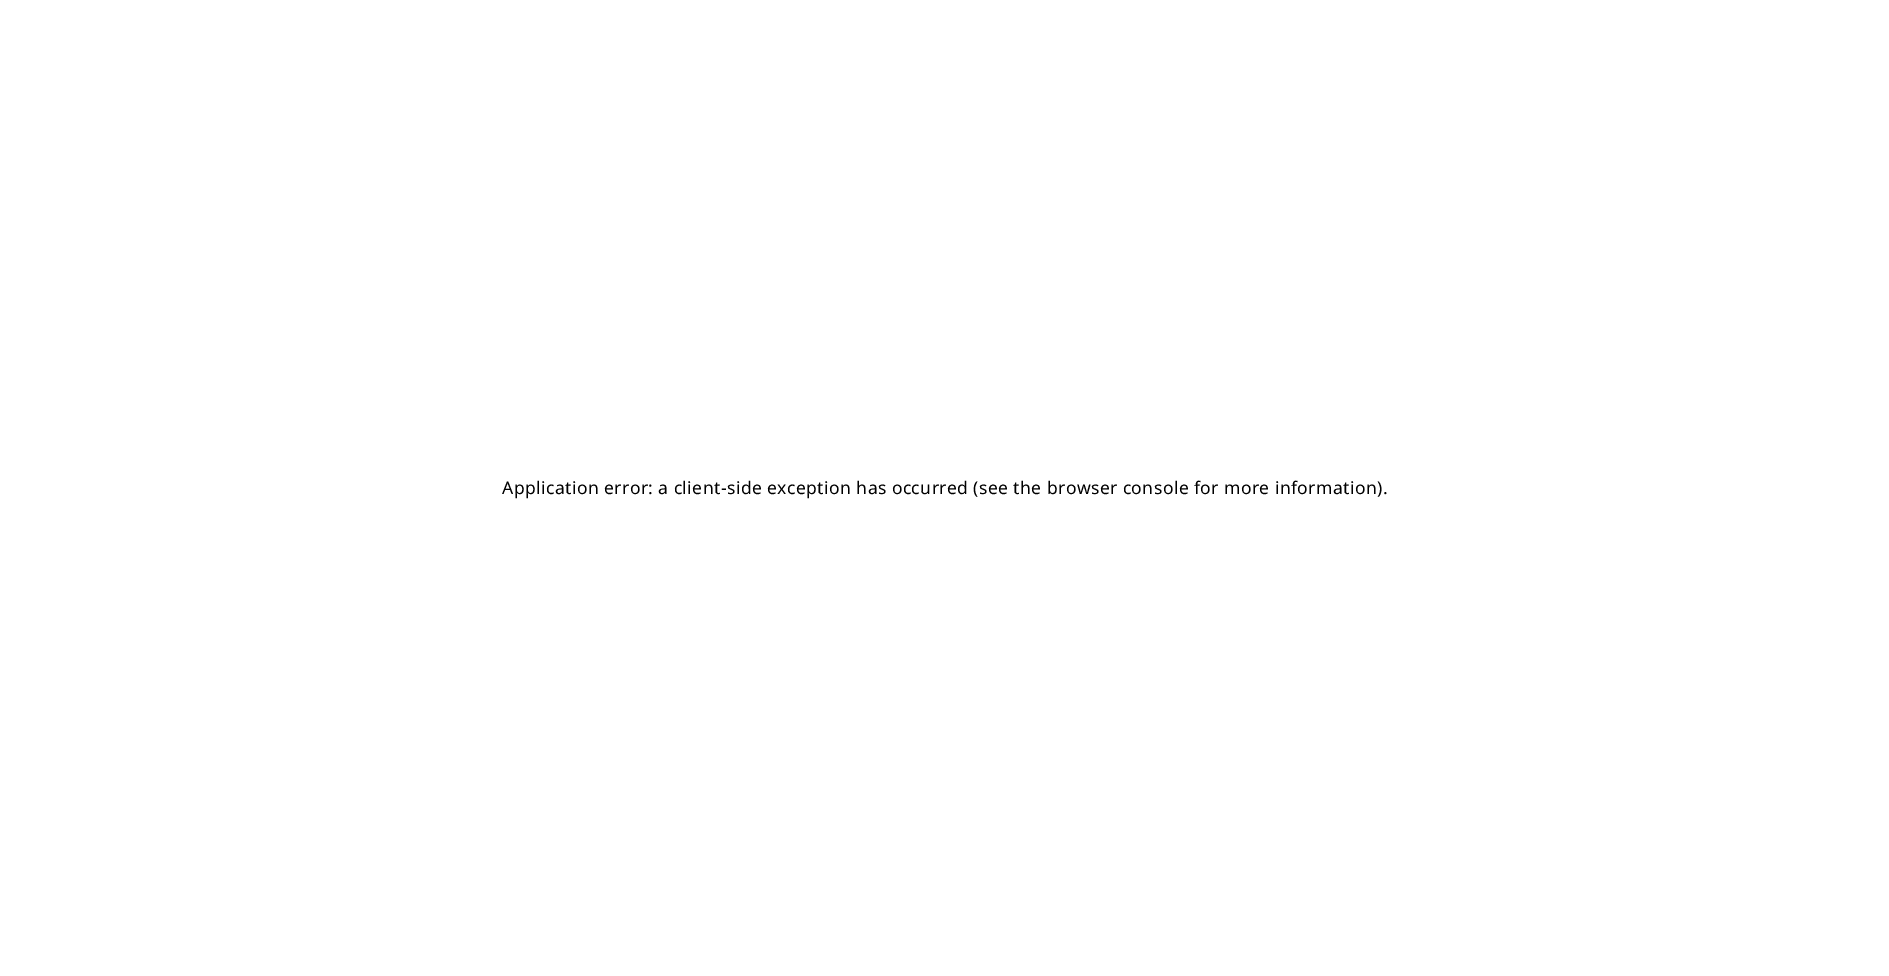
%!PS-Adobe-3.0
%%BoundingBox: 0 0 1889 976
%%LanguageLevel: 3
%%Pages: 1
%%EndComments
%%BeginProlog
/setink { dup -16 bitshift 255 div exch dup -8 bitshift 255 and 255 div exch 255 and 255 div setrgbcolor } def
/usefont { [ exch dup neg 0 0 3 -1 roll 0 0 ] selectfont } def
%%EndProlog
%%BeginSetup
<< /PageSize [1889 976] >> setpagedevice
%%EndSetup
%%Page: 1 1
0 976 translate 1 -1 scale
4 setmiterlimit
16#FFFFFF setink
0 0 1889 976 rectfill
/NotoSans-Regular 17.5 usefont
16#000000 setink
502 494 moveto 0.44 0 (Application error: a client-side exception has occurred \(see the browser console for more information\).) ashow
showpage
%%EOF
